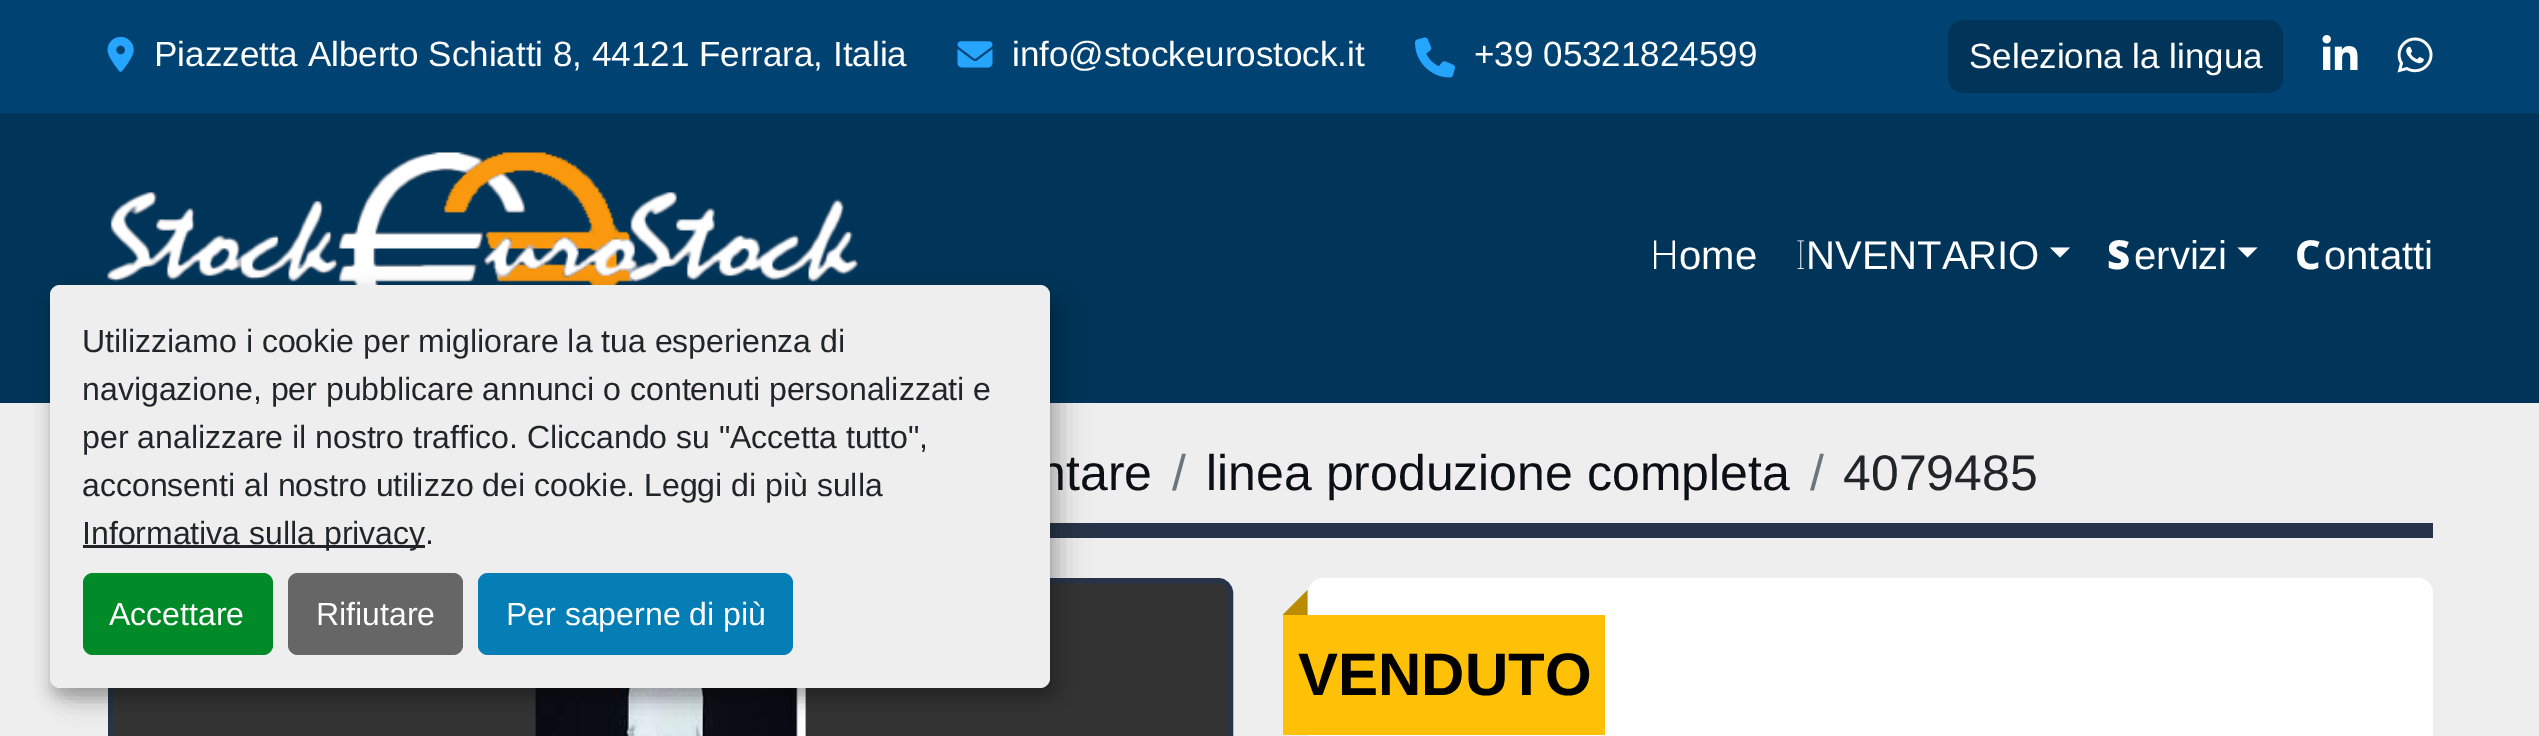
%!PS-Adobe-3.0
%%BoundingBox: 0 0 2539 736
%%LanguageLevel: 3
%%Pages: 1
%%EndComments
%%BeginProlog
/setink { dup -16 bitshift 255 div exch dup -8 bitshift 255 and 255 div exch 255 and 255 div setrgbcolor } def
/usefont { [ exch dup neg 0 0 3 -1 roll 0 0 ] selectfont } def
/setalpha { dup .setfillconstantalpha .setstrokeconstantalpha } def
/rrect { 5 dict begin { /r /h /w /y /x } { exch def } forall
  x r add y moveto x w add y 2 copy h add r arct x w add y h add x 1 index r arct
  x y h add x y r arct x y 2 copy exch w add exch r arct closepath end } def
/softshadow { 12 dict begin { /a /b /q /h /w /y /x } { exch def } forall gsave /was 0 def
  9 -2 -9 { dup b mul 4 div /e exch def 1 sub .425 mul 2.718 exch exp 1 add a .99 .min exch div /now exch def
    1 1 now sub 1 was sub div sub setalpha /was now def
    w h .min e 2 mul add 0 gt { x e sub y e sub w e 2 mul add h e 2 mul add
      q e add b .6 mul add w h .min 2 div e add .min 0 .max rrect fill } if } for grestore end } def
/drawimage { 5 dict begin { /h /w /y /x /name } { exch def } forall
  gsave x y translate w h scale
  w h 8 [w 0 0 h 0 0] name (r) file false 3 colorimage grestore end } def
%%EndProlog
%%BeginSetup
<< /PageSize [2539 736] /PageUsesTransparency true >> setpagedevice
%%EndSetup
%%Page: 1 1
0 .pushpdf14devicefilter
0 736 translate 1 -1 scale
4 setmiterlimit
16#EEEEEE setink
0 0 2539 736 rectfill
16#003459 setink
0 113 2539 290 rectfill
16#004373 setink
0 0 2539 113 rectfill
(img1.raw) 107 36 27 36 drawimage
/LiberationSans-Regular 35 usefont
16#FFFFFF setink
154 66 moveto (Piazzetta Alberto Schiatti 8, 44121 Ferrara, Italia) show
(img2.raw) 957 41 36 27 drawimage
1012 66 moveto (info@stockeurostock.it) show
(img3.raw) 1415 37 40 41 drawimage
1474 66 moveto (+39 05321824599) show
16#003459 setink
1948 20 335 73 15 rrect fill
16#FFFFFF setink
1969 68 moveto (Seleziona la lingua) show
(img4.raw) 2322 35 36 35 drawimage
(img5.raw) 2397 37 36 36 drawimage
(img6.raw) 107 152 751 133 drawimage
/NotoSans-Light 40 usefont
1650 269 moveto (H) show
/LiberationSans-Regular 40 usefont
1679 269 moveto (ome) show
/NotoSans-Thin 40 usefont
1795 269 moveto (I) show
/LiberationSans-Regular 40 usefont
1806 269 moveto (NVENTARIO) show
2050 247.5 moveto 2070 247.5 lineto 2060 257.5 lineto closepath fill
/NotoSans-Black 40 usefont
2107 269 moveto (S) show
/LiberationSans-Regular 40 usefont
2134 269 moveto (ervizi) show
2237.5 247.5 moveto 2257.5 247.5 lineto 2247.5 257.5 lineto closepath fill
/NotoSans-ExtraBold 40 usefont
2295 269 moveto (C) show
/LiberationSans-Regular 40 usefont
2324 269 moveto (ontatti) show
16#273348 setink
1050 523 1383 15 rectfill
/LiberationSans-Regular 50 usefont
16#0C1016 setink
1038 490 moveto (ntare) show
16#6C757D setink
1172 490 moveto (/) show
16#0C1016 setink
1206 490 moveto (linea produzione completa) show
16#6C757D setink
1810 490 moveto (/) show
16#212529 setink
1843 490 moveto (4079485) show
16#333333 setink
110.5 580.5 1120 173 12.5 rrect gsave fill grestore
16#273348 setink
5 setlinewidth
stroke
(img7.raw) 535 688 271 48 drawimage
16#FFFFFF setink
1308 578 1125 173 15 rrect fill
16#FFC107 setink
1283 615 322 120 rectfill
16#BA8B00 setink
1307.5 615 moveto 1282.5 615 lineto 1307.5 590 lineto closepath fill
/LiberationSans-Bold 60 usefont
16#000000 setink
1298 695 moveto (VENDUTO) show
63 298 1000 402 10 12.5 0.19 softshadow
50 295 1000 403 10 7.5 0.2 softshadow
16#EEEEEE setink
50 285 1000 403 10 rrect fill
/LiberationSans-Regular 32 usefont
16#212529 setink
[
    [(Utilizziamo i cookie per migliorare la tua esperienza di) 82 352]
    [(navigazione, per pubblicare annunci o contenuti personalizzati e) 82 400]
    [(per analizzare il nostro traffico. Cliccando su "Accetta tutto",) 82 448]
    [(acconsenti al nostro utilizzo dei cookie. Leggi di più sulla) 82 496]
] { aload pop moveto show } forall
83 545 342 3 rectfill
82 544 moveto (Informativa sulla privacy.) show
16#008A28 setink
83 573 190 82 10 rrect fill
16#FFFFFF setink
109 625 moveto (Accettare) show
16#666666 setink
288 573 175 82 10 rrect fill
16#FFFFFF setink
316 625 moveto (Rifiutare) show
16#057EB6 setink
478 573 315 82 10 rrect fill
16#FFFFFF setink
506 625 moveto (Per saperne di più) show
.poppdf14devicefilter showpage
%%EOF
